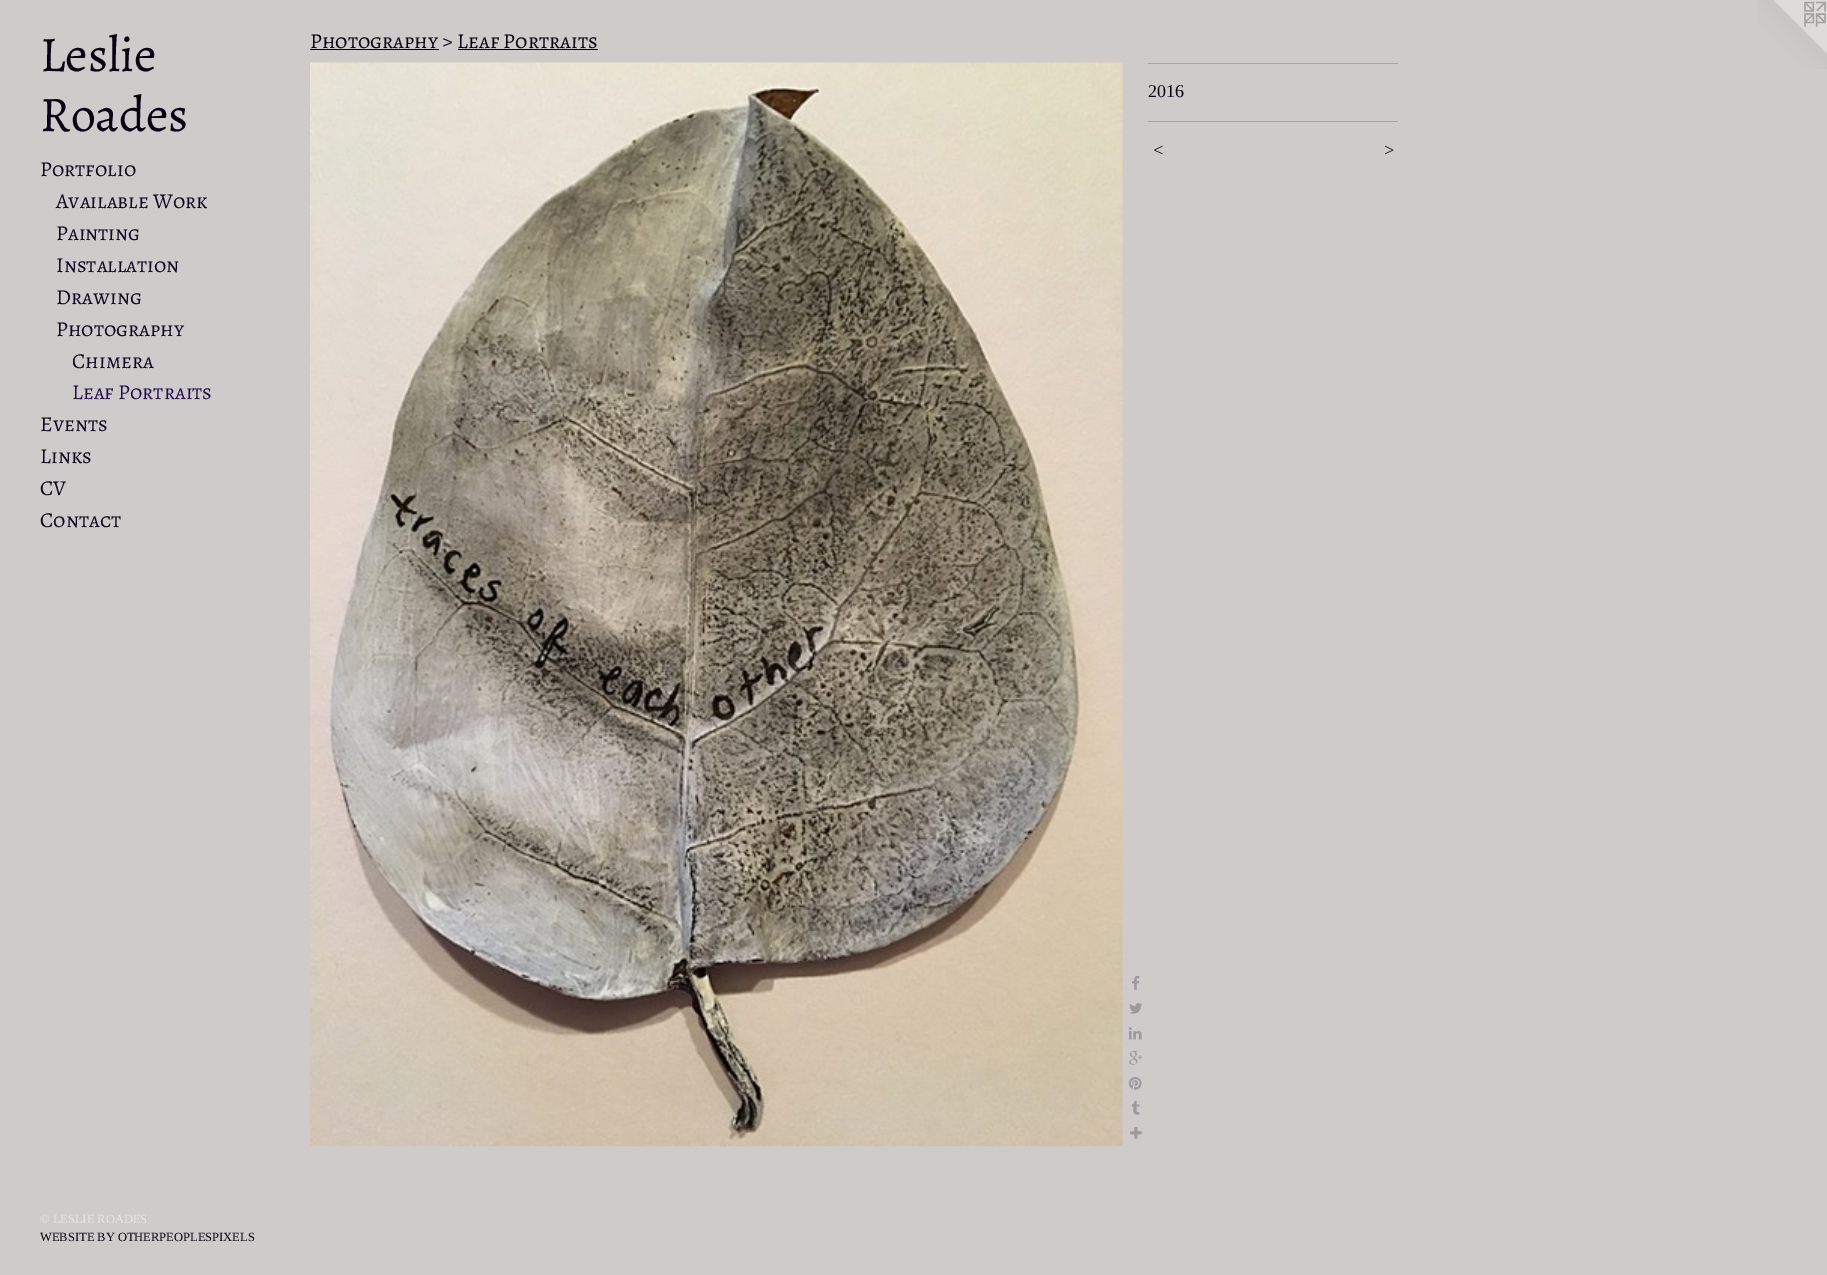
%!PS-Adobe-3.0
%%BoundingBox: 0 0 1827 1275
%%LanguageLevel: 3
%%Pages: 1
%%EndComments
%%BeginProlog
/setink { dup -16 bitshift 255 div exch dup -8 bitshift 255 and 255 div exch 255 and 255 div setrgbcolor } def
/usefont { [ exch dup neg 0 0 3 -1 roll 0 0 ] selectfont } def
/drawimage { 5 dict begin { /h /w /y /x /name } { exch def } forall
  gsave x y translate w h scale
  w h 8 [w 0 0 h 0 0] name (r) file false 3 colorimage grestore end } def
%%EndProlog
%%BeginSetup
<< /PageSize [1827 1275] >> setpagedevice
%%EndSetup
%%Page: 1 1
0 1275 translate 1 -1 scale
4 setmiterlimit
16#D0CBCB setink
0 0 1827 1275 rectfill
/Alegreya-Regular 50 usefont
16#070314 setink
40 71 moveto (Leslie) show
40 131 moveto (Roades) show
/AlegreyaSC-Regular 21.25 usefont
16#100722 setink
[
    [(Portfolio) 40 176]
    [(Available Work) 56 208]
    [(Painting) 56 240]
    [(Installation) 56 272]
    [(Drawing) 56 304]
    [(Photography) 56 336]
] { aload pop moveto show } forall
gsave
73 345 217 33 rectclip
72 368 moveto (Chimera) show
grestore
16#24104C setink
72 399 moveto (Leaf Portraits) show
16#100722 setink
[
    [(Events) 40 431]
    [(Links) 40 463]
    [(CV) 40 495]
    [(Contact) 40 527]
] { aload pop moveto show } forall
/LiberationSerif-Regular 12.5 usefont
16#EAE6E6 setink
40 1223 moveto (© LESLIE ROADES) show
16#03020D setink
40 1241 moveto (WEBSITE BY OTHERPEOPLESPIXELS) show
/AlegreyaSC-Regular 21.25 usefont
310 48 moveto (Photography > Leaf Portraits) show
16#05020B setink
310 49 129 1 rectfill
458 49 140 1 rectfill
(img1.raw) 310 62 813 1085 drawimage
(img2.raw) 1132 976 8 14 drawimage
(img3.raw) 1129 1003 13 11 drawimage
(img4.raw) 1128 1027 14 13 drawimage
(img5.raw) 1129 1050 14 15 drawimage
(img6.raw) 1128 1077 14 13 drawimage
(img7.raw) 1131 1100 9 15 drawimage
(img8.raw) 1130 1127 12 12 drawimage
16#A8A3A7 setink
1148 63 250 1 rectfill
/LiberationSerif-Regular 18 usefont
16#070314 setink
1148 97 moveto (2016) show
16#A8A3A7 setink
1148 121 250 1 rectfill
/LiberationSerif-Italic 18 usefont
16#070314 setink
1152 156 moveto 1 0 (<) ashow
1383 156 moveto 1 0 (>) ashow
(img9.raw) 1758 0 69 69 drawimage
showpage
%%EOF
